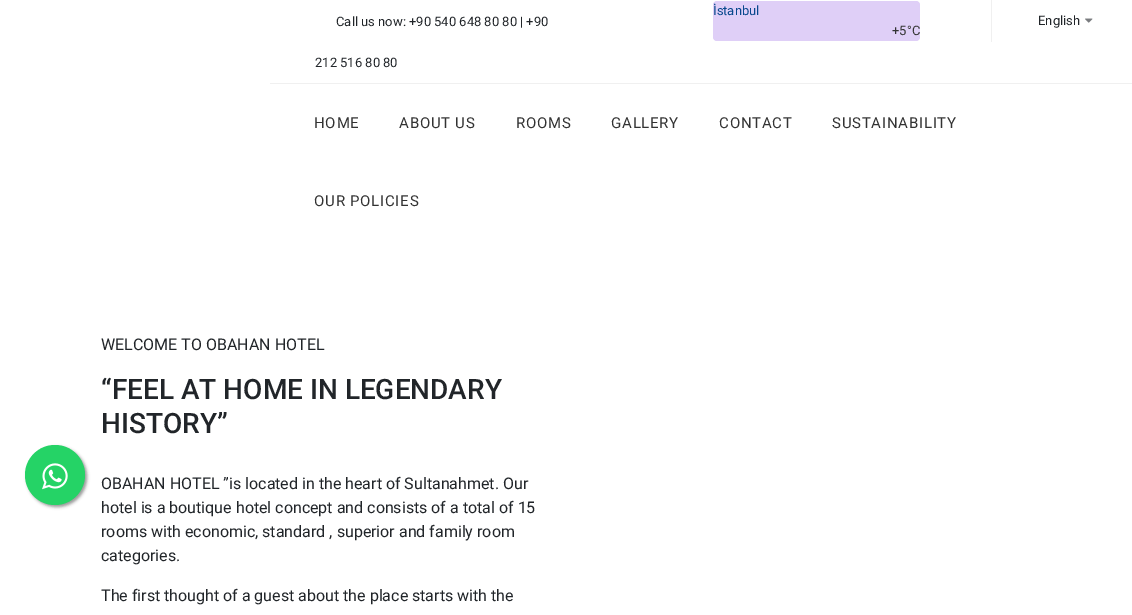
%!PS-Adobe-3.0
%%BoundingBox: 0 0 1132 615
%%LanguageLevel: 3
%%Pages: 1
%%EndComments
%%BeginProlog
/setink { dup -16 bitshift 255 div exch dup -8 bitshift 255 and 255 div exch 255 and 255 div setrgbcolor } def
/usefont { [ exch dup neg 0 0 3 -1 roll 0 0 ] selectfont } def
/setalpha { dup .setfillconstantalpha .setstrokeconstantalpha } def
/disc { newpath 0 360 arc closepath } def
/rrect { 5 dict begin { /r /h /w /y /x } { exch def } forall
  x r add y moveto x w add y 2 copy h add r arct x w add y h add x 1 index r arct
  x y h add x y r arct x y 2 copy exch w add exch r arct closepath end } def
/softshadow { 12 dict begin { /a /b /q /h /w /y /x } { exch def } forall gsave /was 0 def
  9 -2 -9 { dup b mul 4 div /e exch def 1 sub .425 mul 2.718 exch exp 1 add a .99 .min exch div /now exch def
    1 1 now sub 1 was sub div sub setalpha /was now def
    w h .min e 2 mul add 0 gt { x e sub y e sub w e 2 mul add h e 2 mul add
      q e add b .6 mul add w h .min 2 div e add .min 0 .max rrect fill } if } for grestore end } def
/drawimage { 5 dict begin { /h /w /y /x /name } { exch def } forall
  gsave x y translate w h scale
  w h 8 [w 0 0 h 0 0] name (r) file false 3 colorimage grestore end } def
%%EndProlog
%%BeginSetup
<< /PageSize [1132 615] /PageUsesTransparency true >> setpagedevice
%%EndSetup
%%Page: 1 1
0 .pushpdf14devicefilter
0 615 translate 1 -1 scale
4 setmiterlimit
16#FFFFFF setink
0 0 1132 615 rectfill
16#F0F0F0 setink
270 83 862 1 rectfill
/Roboto-Regular 13 usefont
16#212529 setink
336 26 moveto (Call us now: +90 540 648 80 80 | +90) show
315 67 moveto (212 516 80 80) show
16#DFCFF7 setink
713 1 207 40 4 rrect fill
16#08488D setink
713 15 moveto (İstanbul) show
16#333333 setink
892 35 moveto (+5°C) show
16#F0F0F0 setink
991 0 1 42 rectfill
16#212529 setink
1038 25 moveto (English) show
(img1.raw) 1085 18 8 5 drawimage
/Roboto-Regular 15 usefont
16#333333 setink
314 128 moveto 0.75 0 (HOME) ashow
399 128 moveto 0.75 0 (ABOUT US) ashow
516 128 moveto 0.75 0 (ROOMS) ashow
611 128 moveto 0.75 0 (GALLERY) ashow
719 128 moveto 0.75 0 (CONTACT) ashow
832 128 moveto 0.75 0 (SUSTAINABILITY) ashow
314 206 moveto 0.75 0 (OUR POLICIES) ashow
16#999999 setink
27 447 60 60 30 1.5 1 softshadow
16#25D366 setink
55 475 30 disc fill
(img2.raw) 42 463 26 27 drawimage
/Roboto-Regular 16 usefont
16#212529 setink
101 350 moveto (WELCOME TO OBAHAN HOTEL) show
/Roboto-Medium 28 usefont
101 399 moveto (“FEEL AT HOME IN LEGENDARY) show
101 433 moveto (HISTORY”) show
/Roboto-Regular 16 usefont
[
    [(OBAHAN HOTEL ”is located in the heart of Sultanahmet. Our) 101 489]
    [(hotel is a boutique hotel concept and consists of a total of 15) 101 513]
    [(rooms with economic, standard , superior and family room) 101 537]
    [(categories.) 101 561]
    [(The first thought of a guest about the place starts with the) 101 601]
] { aload pop moveto show } forall
.poppdf14devicefilter showpage
%%EOF
